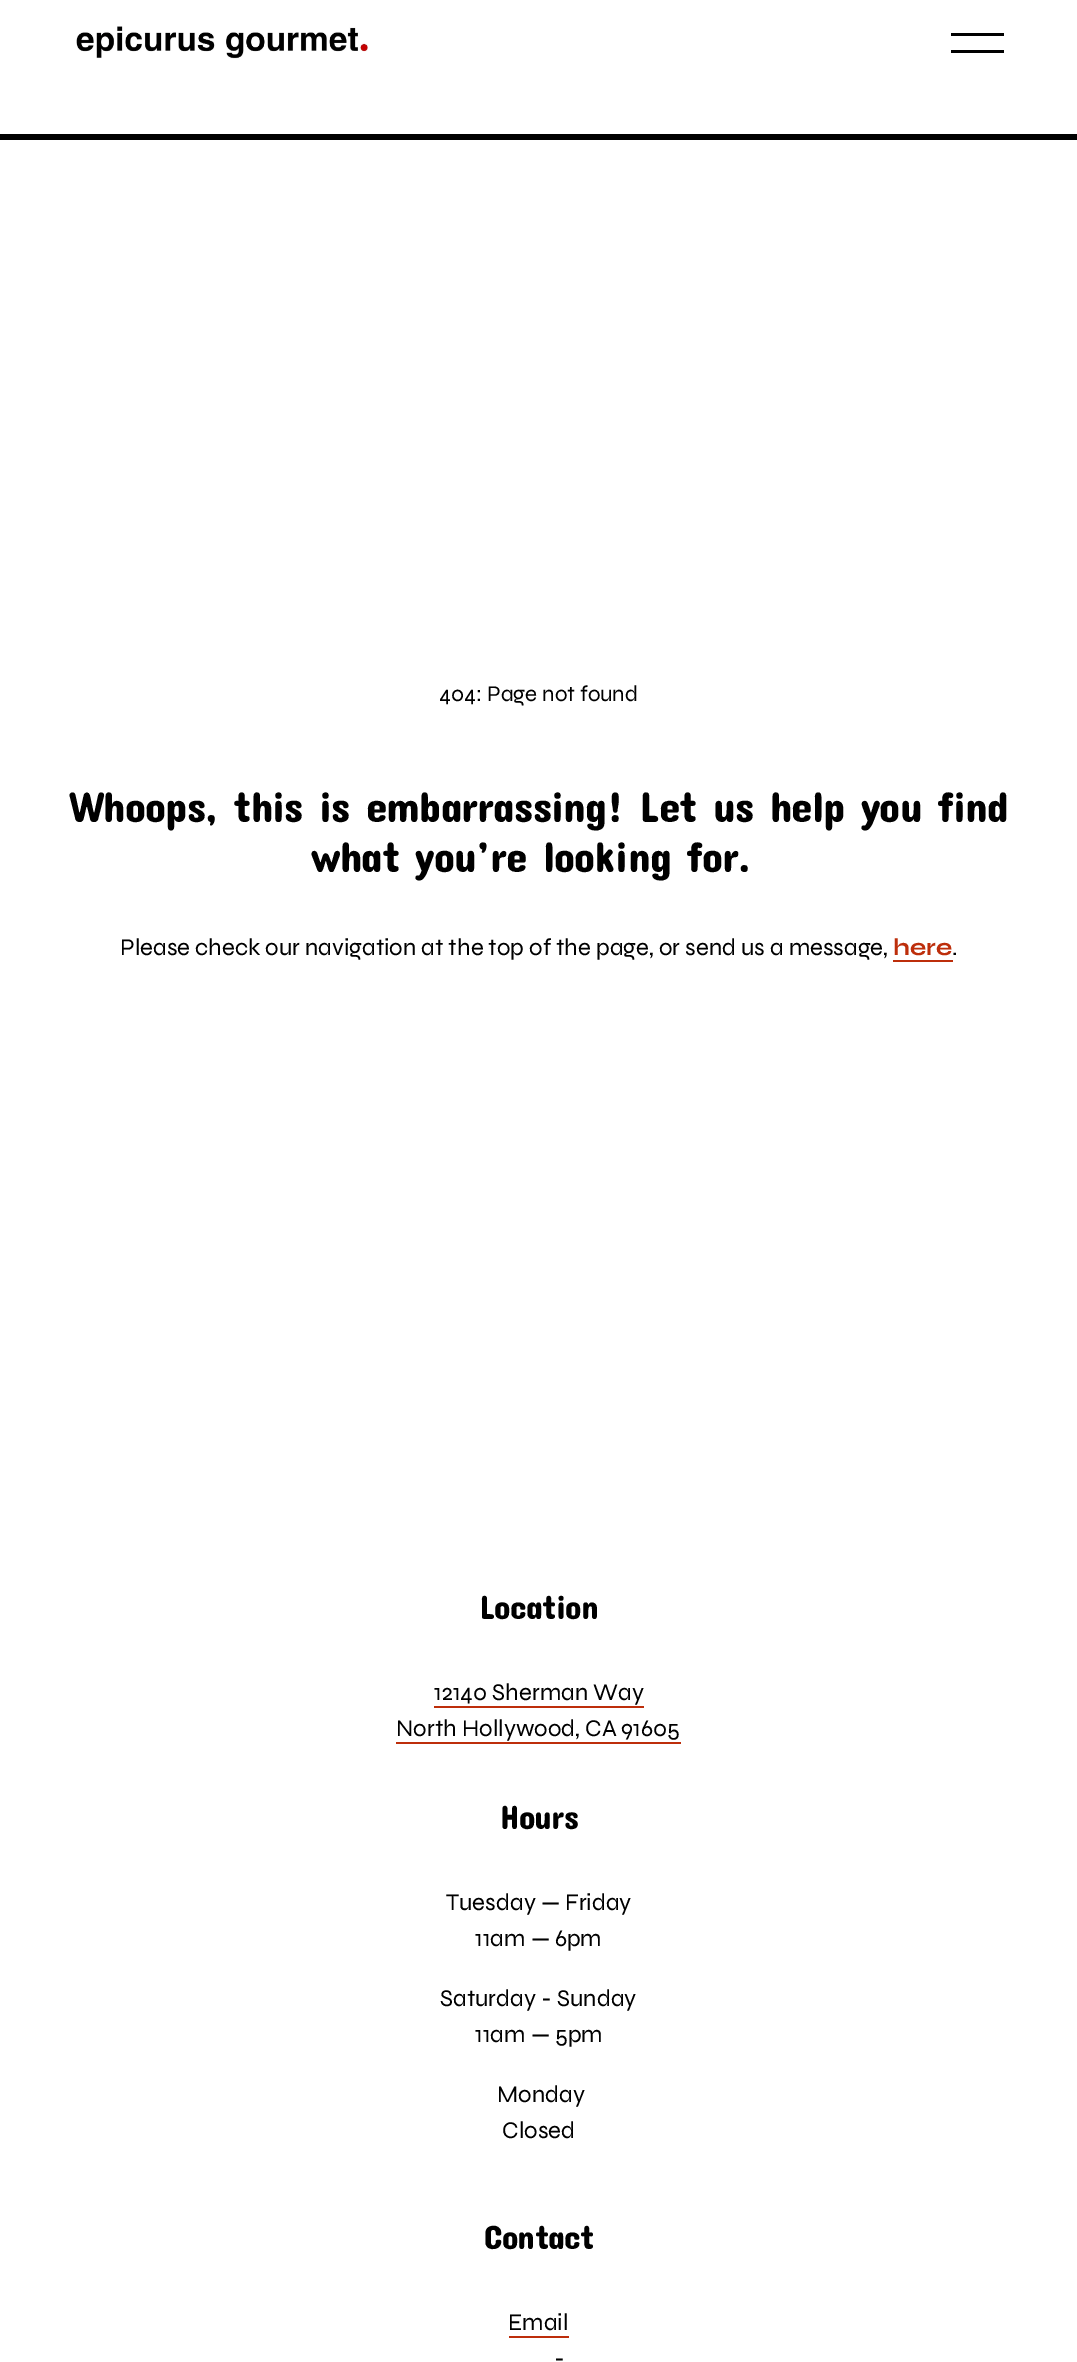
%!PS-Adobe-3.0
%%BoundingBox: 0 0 1077 2362
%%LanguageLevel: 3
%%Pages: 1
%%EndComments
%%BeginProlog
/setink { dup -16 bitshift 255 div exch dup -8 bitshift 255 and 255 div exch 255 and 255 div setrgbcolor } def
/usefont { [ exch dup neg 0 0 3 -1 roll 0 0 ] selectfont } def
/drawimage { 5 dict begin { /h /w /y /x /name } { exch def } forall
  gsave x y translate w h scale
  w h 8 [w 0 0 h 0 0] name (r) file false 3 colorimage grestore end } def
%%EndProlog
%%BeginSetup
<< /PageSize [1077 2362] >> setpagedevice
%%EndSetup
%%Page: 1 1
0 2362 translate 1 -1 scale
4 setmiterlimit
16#FFFFFF setink
0 0 1077 2362 rectfill
(img1.raw) 76 26 292 33 drawimage
[
    [951 33 53 3 16#000000]
    [951 50 53 3 16#000000]
    [0 134 1077 6 16#000000]
] { aload pop setink rectfill } forall
/Syne-Regular 22.4 usefont
439 701 moveto (404: Page not found) show
/ConcertOne-Regular 43.4 usefont
69 822 moveto -0.85 0 (Whoops, this is embarrassing! Let us help you find) ashow
311 872 moveto -0.85 0 (what you’re looking for.) ashow
/Syne-Regular 24 usefont
120 955 moveto (Please check our navigation at the top of the page, or send us a message,) show
/Syne-Bold 24 usefont
16#BD2E0B setink
893 955 moveto (here) show
893 960 60 2 rectfill
/Syne-Regular 24 usefont
16#000000 setink
952 955 moveto (.) show
/ConcertOne-Regular 34 usefont
479 1619 moveto -0.75 0 (Location) ashow
/Syne-Regular 24 usefont
434 1700 moveto (12140 Sherman Way) show
16#BD2E0B setink
434 1706 210 2 rectfill
16#000000 setink
396 1736 moveto (North Hollywood, CA 91605) show
16#BD2E0B setink
396 1742 285 2 rectfill
/ConcertOne-Regular 34 usefont
16#000000 setink
500 1829 moveto -0.75 0 (Hours) ashow
/Syne-Regular 24 usefont
[
    [(Tuesday — Friday) 446 1910]
    [(11am — 6pm) 475 1946]
    [(Saturday - Sunday) 440 2006]
    [(11am — 5pm) 475 2042]
    [(Monday) 497 2102]
    [(Closed) 502 2138]
] { aload pop moveto show } forall
/ConcertOne-Regular 34 usefont
484 2249 moveto -0.75 0 (Contact) ashow
/Syne-Regular 24 usefont
508 2330 moveto (Email) show
16#BD2E0B setink
509 2336 60 2 rectfill
16#000000 setink
554 2366 moveto (-) show
showpage
%%EOF
